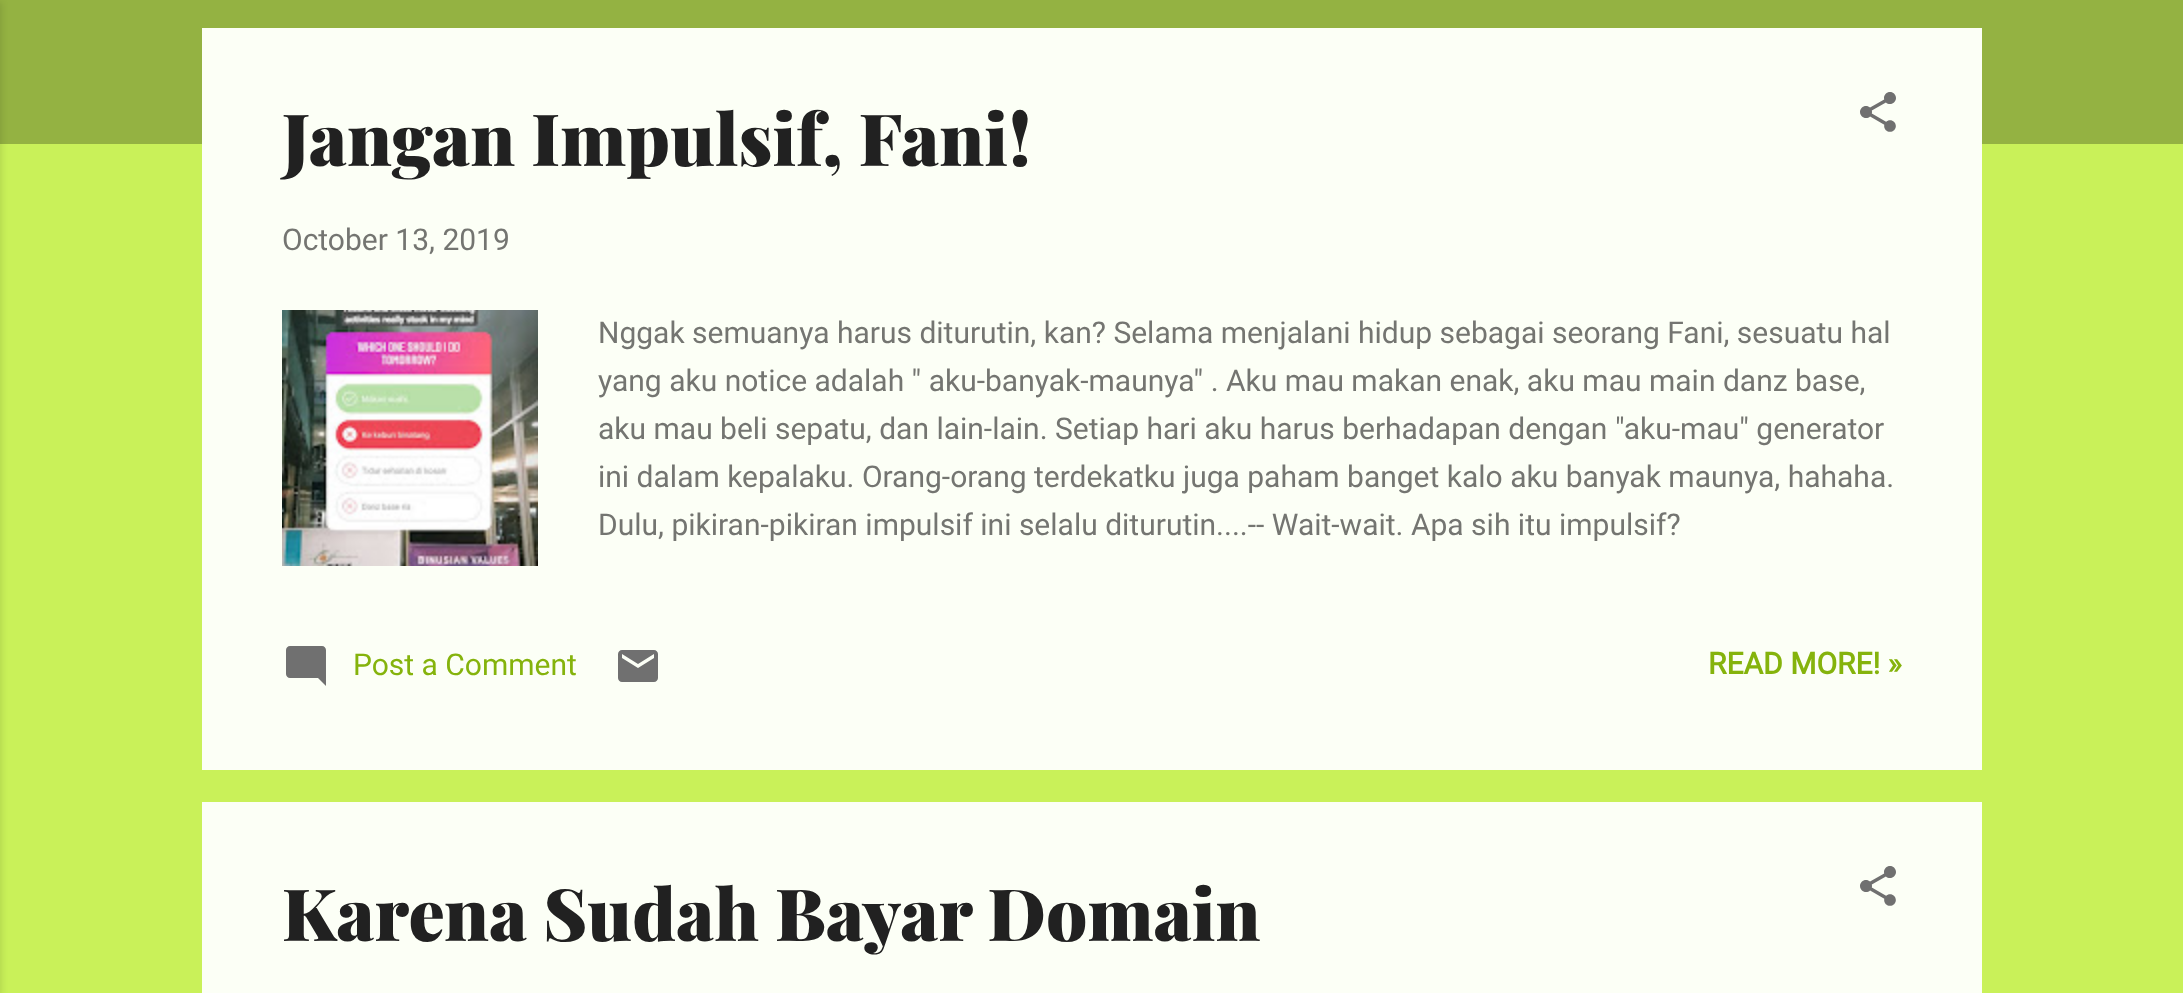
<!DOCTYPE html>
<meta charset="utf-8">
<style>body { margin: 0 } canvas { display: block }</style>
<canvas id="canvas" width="2183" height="993"></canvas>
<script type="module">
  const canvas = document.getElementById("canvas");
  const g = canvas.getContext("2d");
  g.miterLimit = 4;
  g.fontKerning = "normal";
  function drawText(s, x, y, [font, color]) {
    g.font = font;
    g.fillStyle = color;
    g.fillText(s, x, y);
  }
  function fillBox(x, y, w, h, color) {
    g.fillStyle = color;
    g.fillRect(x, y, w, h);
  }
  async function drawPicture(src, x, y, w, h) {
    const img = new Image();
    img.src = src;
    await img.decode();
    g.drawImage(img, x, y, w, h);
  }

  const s1 = ["900 72px Playfair Display", "#212121"];
  const s2 = ["30px Roboto", "#747571"];
  const s3 = ["30px Roboto", "#85B30C"];
  const s4 = ["bold 30px Roboto", "#85B30C"];

  fillBox(0, 0, 2183, 993, "#C9F159");
  fillBox(0, 0, 2183, 144, "#94B242");
  g.fillStyle = "rgba(0, 0, 0, 0.1)";
  g.filter = "blur(3px)";
  g.beginPath();
  g.rect(-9, 2, 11, 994);
  g.fill();
  g.filter = "none";
  fillBox(202, 28, 1780, 742, "#FCFFF6");
  drawText("Jangan Impulsif, Fani!", 282, 166, s1);
  await drawPicture("pic1.png", 1860, 92, 36, 40);
  drawText("October 13, 2019", 282, 250, s2);
  await drawPicture("pic2.png", 282, 310, 256, 256);
  drawText("Nggak semuanya harus diturutin, kan? Selama menjalani hidup sebagai seorang Fani, sesuatu hal", 598, 343, s2);
  drawText("yang aku notice adalah \" aku-banyak-maunya\" . Aku mau makan enak, aku mau main danz base,", 598, 391, s2);
  drawText("aku mau beli sepatu, dan lain-lain. Setiap hari aku harus berhadapan dengan \"aku-mau\" generator", 598, 439, s2);
  drawText("ini dalam kepalaku. Orang-orang terdekatku juga paham banget kalo aku banyak maunya, hahaha.", 598, 487, s2);
  drawText("Dulu, pikiran-pikiran impulsif ini selalu diturutin....-- Wait-wait. Apa sih itu impulsif?", 598, 535, s2);
  await drawPicture("pic3.png", 286, 646, 40, 40);
  drawText("Post a Comment", 353, 675, s3);
  await drawPicture("pic4.png", 618, 650, 40, 32);
  drawText("READ MORE! »", 1708, 674, s4);
  fillBox(202, 802, 1780, 191, "#FCFFF6");
  drawText("Karena Sudah Bayar Domain", 282, 941, s1);
  await drawPicture("pic1.png", 1860, 866, 36, 40);
</script>
